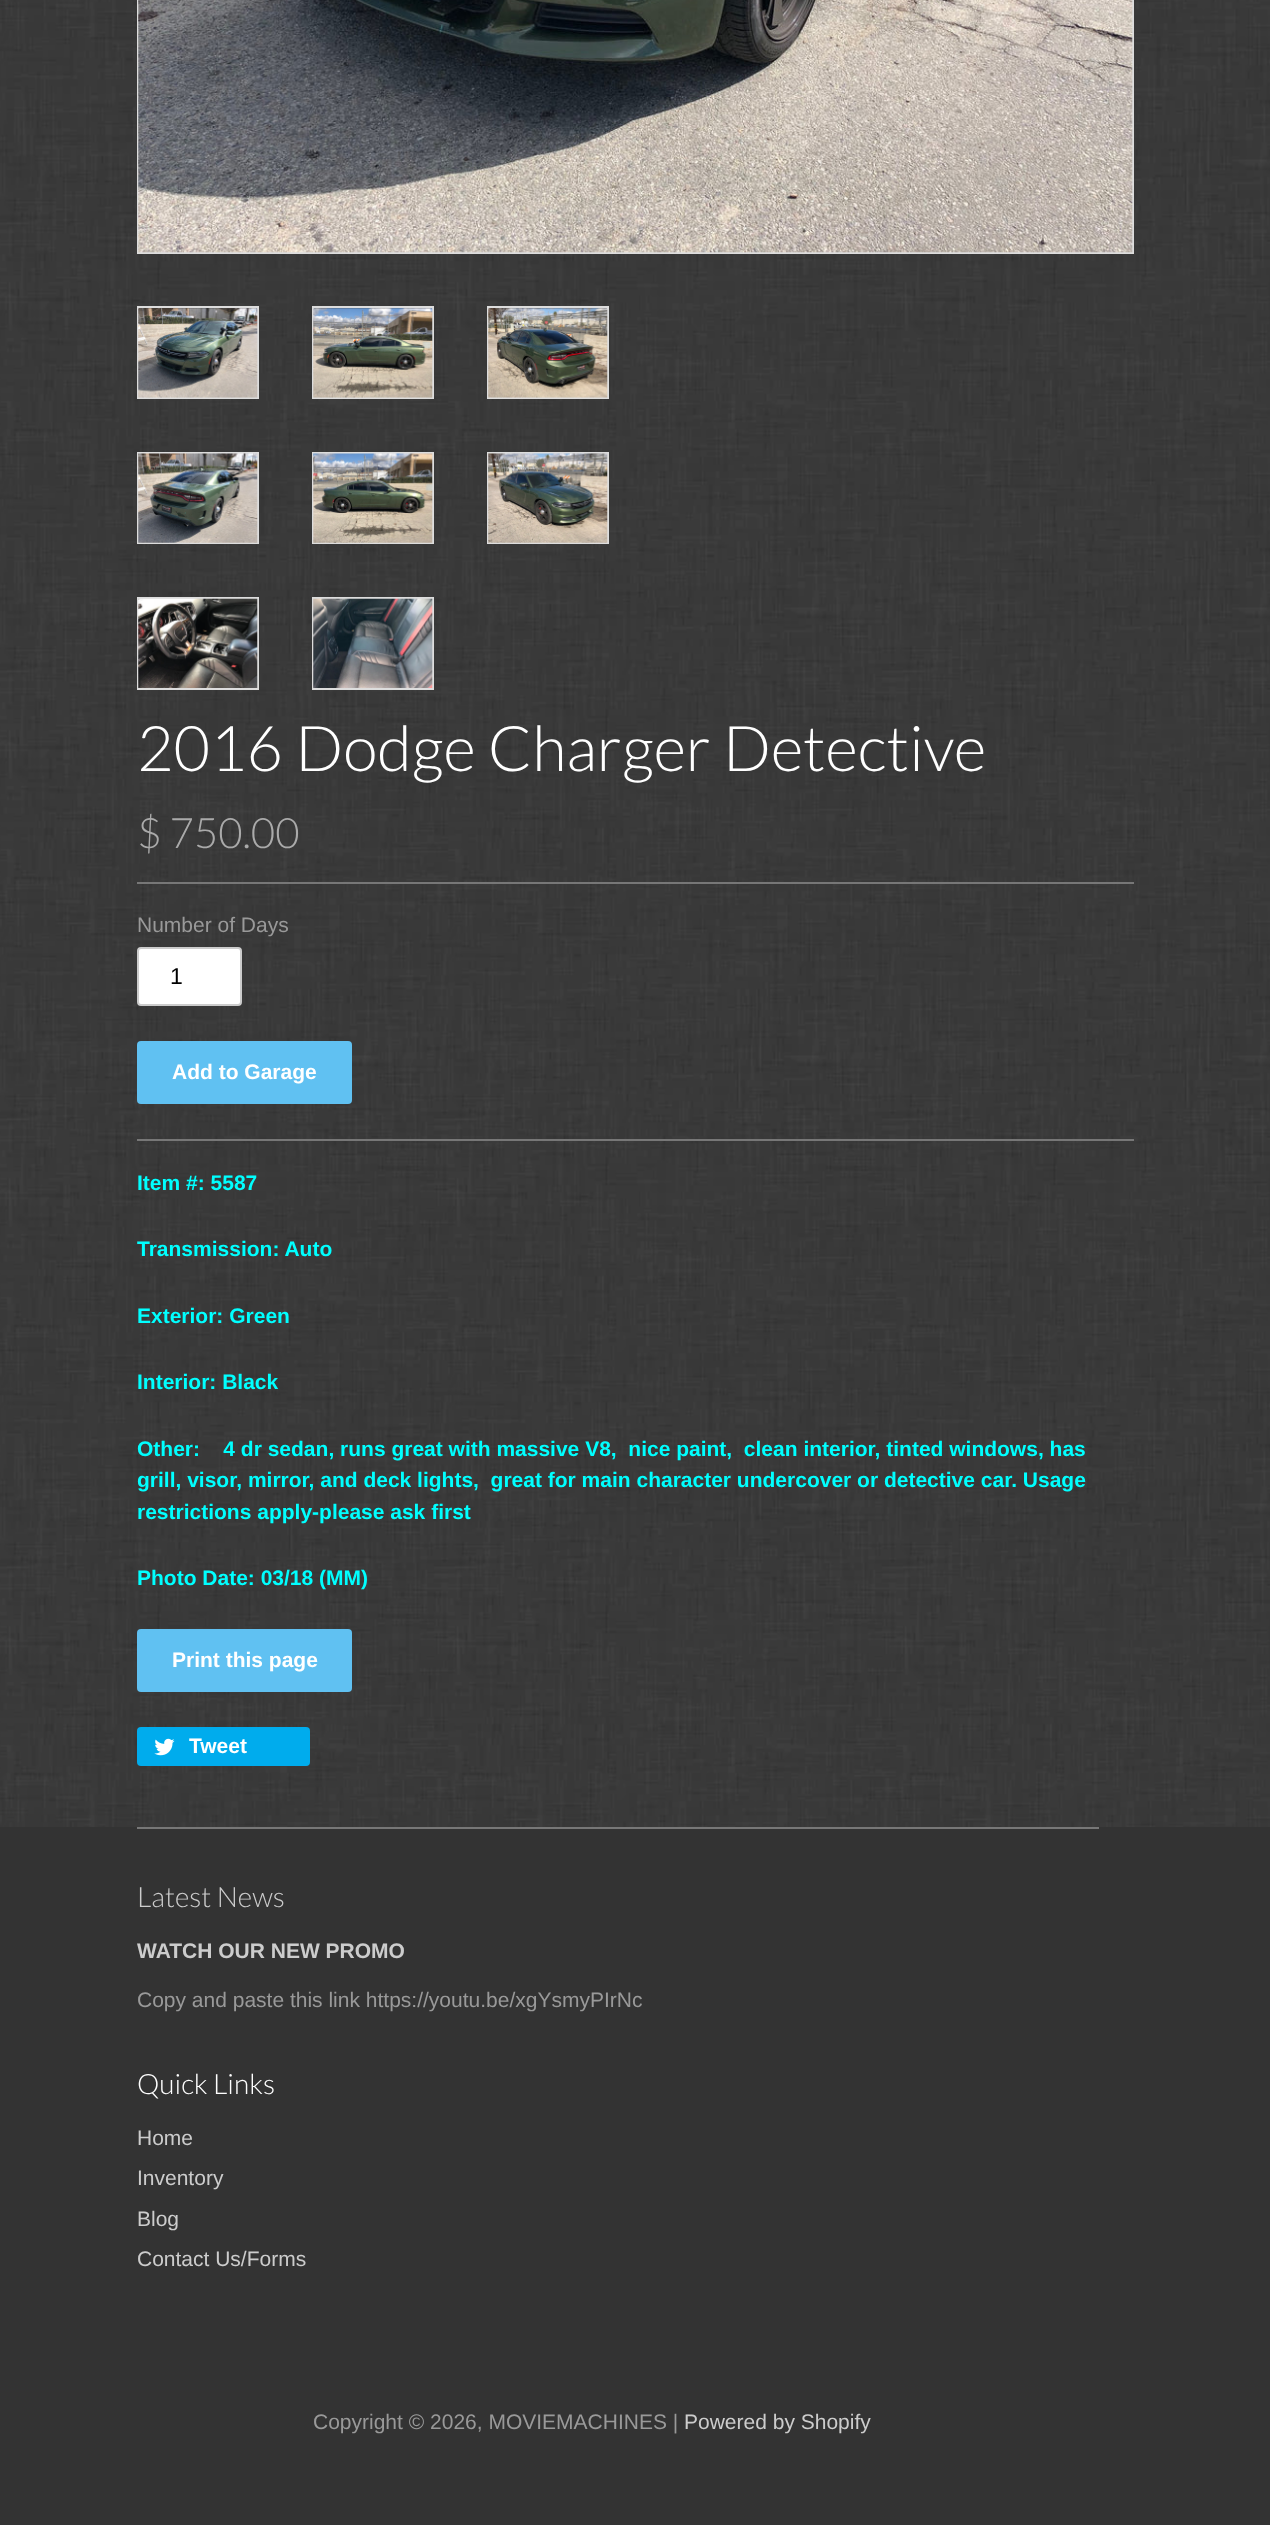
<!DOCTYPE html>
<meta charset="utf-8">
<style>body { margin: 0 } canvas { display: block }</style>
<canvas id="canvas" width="1270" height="2525"></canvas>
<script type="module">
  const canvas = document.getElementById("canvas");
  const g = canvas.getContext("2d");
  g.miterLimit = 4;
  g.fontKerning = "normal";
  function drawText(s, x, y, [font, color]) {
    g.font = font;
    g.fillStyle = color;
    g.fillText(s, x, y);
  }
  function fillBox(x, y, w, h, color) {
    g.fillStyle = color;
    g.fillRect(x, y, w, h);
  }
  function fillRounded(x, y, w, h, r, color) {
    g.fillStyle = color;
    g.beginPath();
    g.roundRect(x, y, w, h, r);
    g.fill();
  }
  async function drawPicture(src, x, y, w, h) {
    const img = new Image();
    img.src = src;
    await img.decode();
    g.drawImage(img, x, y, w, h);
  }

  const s1 = ["300 63px Lato", "#FFFFFF"];
  const s2 = ["300 42px Lato", "#AAAAAA"];
  const s3 = ["21px Liberation Sans", "#999999"];
  const s4 = ["23px Liberation Sans", "#000000"];
  const s5 = ["bold 21px Liberation Sans", "#FFFFFF"];
  const s6 = ["bold 21px Liberation Sans", "#00FFFF"];
  const s7 = ["300 28px Lato", "#CCCCCC"];
  const s8 = ["bold 21px Liberation Sans", "#CCCCCC"];
  const s9 = ["300 28px Lato", "#FFFFFF"];
  const s10 = ["21px Liberation Sans", "#CCCCCC"];

  fillBox(0, 0, 1270, 2525, "#FFFFFF");
  await drawPicture("pic1.png", 0, 0, 1270, 1827);
  g.strokeStyle = "#DDDDDD";
  g.lineWidth = 2;
  g.strokeRect(138, -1, 995, 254);
  await drawPicture("pic2.png", 138, 0, 995, 253);
  g.strokeRect(138, 307, 120, 91);
  await drawPicture("pic3.png", 138, 308, 120, 90);
  g.strokeRect(313, 307, 120, 91);
  await drawPicture("pic4.png", 313, 308, 120, 90);
  g.strokeRect(488, 307, 120, 91);
  await drawPicture("pic5.png", 488, 308, 120, 90);
  g.strokeRect(138, 453, 120, 90);
  await drawPicture("pic6.png", 138, 453, 120, 90);
  g.strokeRect(313, 453, 120, 90);
  await drawPicture("pic7.png", 313, 453, 120, 90);
  g.strokeRect(488, 453, 120, 90);
  await drawPicture("pic8.png", 488, 453, 120, 90);
  g.strokeRect(138, 598, 120, 91);
  await drawPicture("pic9.png", 138, 598, 120, 90);
  g.strokeRect(313, 598, 120, 91);
  await drawPicture("pic10.png", 313, 598, 120, 90);
  drawText("2016 Dodge Charger Detective", 137, 771, s1);
  drawText("$ 750.00", 137, 848, s2);
  fillBox(137, 882, 997, 2, "#777777");
  fillBox(137, 1139, 997, 2, "#777777");
  drawText("Number of Days", 137, 932, s3);
  g.fillStyle = "#FFFFFF";
  g.beginPath();
  g.roundRect(138, 948, 103, 57, 3);
  g.fill();
  g.strokeStyle = "#CCCCCC";
  g.stroke();
  drawText("1", 170, 984, s4);
  fillRounded(137, 1041, 215, 63, 4, "#60C1F2");
  drawText("Add to Garage", 172, 1079, s5);
  drawText("Item #: 5587", 137, 1190, s6);
  drawText("Transmission: Auto", 137, 1256, s6);
  drawText("Exterior: Green", 137, 1323, s6);
  drawText("Interior: Black", 137, 1389, s6);
  drawText("Other:    4 dr sedan, runs great with massive V8,  nice paint,  clean interior, tinted windows, has", 137, 1456, s6);
  drawText("grill, visor, mirror, and deck lights,  great for main character undercover or detective car. Usage", 137, 1487, s6);
  drawText("restrictions apply-please ask first", 137, 1519, s6);
  drawText("Photo Date: 03/18 (MM)", 137, 1585, s6);
  fillRounded(137, 1629, 215, 63, 4, "#60C1F2");
  drawText("Print this page", 172, 1667, s5);
  fillRounded(137, 1727, 173, 39, 4, "#00ACED");
  await drawPicture("pic11.png", 154, 1738, 21, 18);
  drawText("Tweet", 189, 1753, s5);
  fillBox(0, 1827, 1270, 698, "#333333");
  fillBox(137, 1827, 962, 2, "#777777");
  drawText("Latest News", 137, 1907, s7);
  drawText("WATCH OUR NEW PROMO", 137, 1958, s8);
  drawText("Copy and paste this link https://youtu.be/xgYsmyPIrNc", 137, 2007, s3);
  drawText("Quick Links", 137, 2094, s9);
  drawText("Home", 137, 2145, s10);
  drawText("Inventory", 137, 2185, s10);
  drawText("Blog", 137, 2226, s10);
  drawText("Contact Us/Forms", 137, 2266, s10);
  drawText("Copyright © 2026, MOVIEMACHINES |", 313, 2429, s3);
  drawText("Powered by Shopify", 684, 2429, s10);
</script>
